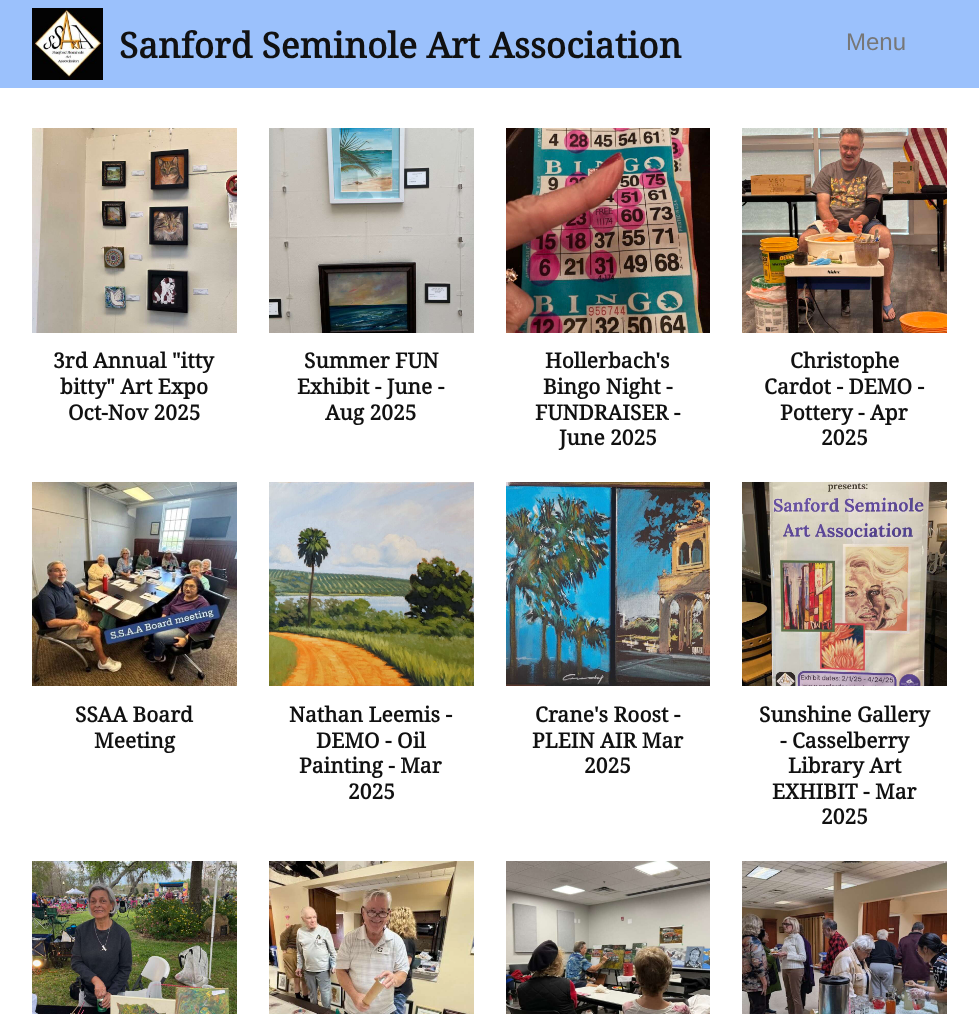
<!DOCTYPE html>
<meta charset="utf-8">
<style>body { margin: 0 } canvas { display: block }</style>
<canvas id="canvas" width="979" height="1014"></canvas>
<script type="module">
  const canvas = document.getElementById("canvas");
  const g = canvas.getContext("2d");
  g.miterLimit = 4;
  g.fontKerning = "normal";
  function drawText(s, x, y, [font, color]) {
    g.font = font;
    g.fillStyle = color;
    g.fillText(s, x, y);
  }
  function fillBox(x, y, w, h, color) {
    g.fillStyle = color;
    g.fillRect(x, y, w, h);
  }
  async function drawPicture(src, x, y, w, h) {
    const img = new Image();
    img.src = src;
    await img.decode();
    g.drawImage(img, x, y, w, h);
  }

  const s1 = ["bold 35.25px Noto Serif", "#111111"];
  const s2 = ["24px Liberation Sans", "#777777"];
  const s3 = ["bold 21px Noto Serif", "#111111"];

  fillBox(0, 0, 979, 1014, "#FFFFFF");
  fillBox(0, 0, 979, 88, "#9BC1FC");
  await drawPicture("pic1.png", 32, 8, 71, 72);
  drawText("Sanford Seminole Art Association", 119, 58, s1);
  drawText("Menu", 846, 50, s2);
  await drawPicture("pic2.png", 32, 128, 205, 205);
  drawText("3rd Annual \"itty", 53, 368, s3);
  drawText("bitty\" Art Expo", 60, 394, s3);
  drawText("Oct-Nov 2025", 68, 420, s3);
  await drawPicture("pic3.png", 269, 128, 205, 205);
  drawText("Summer FUN", 304, 368, s3);
  drawText("Exhibit - June -", 297, 394, s3);
  drawText("Aug 2025", 325, 420, s3);
  await drawPicture("pic4.png", 506, 128, 204, 205);
  drawText("Hollerbach's", 545, 368, s3);
  drawText("Bingo Night -", 543, 394, s3);
  drawText("FUNDRAISER -", 535, 420, s3);
  drawText("June 2025", 559, 445, s3);
  await drawPicture("pic5.png", 742, 128, 205, 205);
  drawText("Christophe", 790, 368, s3);
  drawText("Cardot - DEMO -", 764, 394, s3);
  drawText("Pottery - Apr", 780, 420, s3);
  drawText("2025", 821, 445, s3);
  await drawPicture("pic6.png", 32, 482, 205, 204);
  drawText("SSAA Board", 75, 722, s3);
  drawText("Meeting", 94, 748, s3);
  await drawPicture("pic7.png", 269, 482, 205, 204);
  drawText("Nathan Leemis -", 289, 722, s3);
  drawText("DEMO - Oil", 316, 748, s3);
  drawText("Painting - Mar", 299, 773, s3);
  drawText("2025", 348, 799, s3);
  await drawPicture("pic8.png", 506, 482, 204, 204);
  drawText("Crane's Roost -", 535, 722, s3);
  drawText("PLEIN AIR Mar", 532, 748, s3);
  drawText("2025", 584, 773, s3);
  await drawPicture("pic9.png", 742, 482, 205, 204);
  drawText("Sunshine Gallery", 759, 722, s3);
  drawText("- Casselberry", 780, 748, s3);
  drawText("Library Art", 788, 773, s3);
  drawText("EXHIBIT - Mar", 772, 799, s3);
  drawText("2025", 821, 824, s3);
  await drawPicture("pic10.png", 32, 861, 205, 153);
  await drawPicture("pic11.png", 269, 861, 205, 153);
  await drawPicture("pic12.png", 506, 861, 204, 153);
  await drawPicture("pic13.png", 742, 861, 205, 153);
</script>
